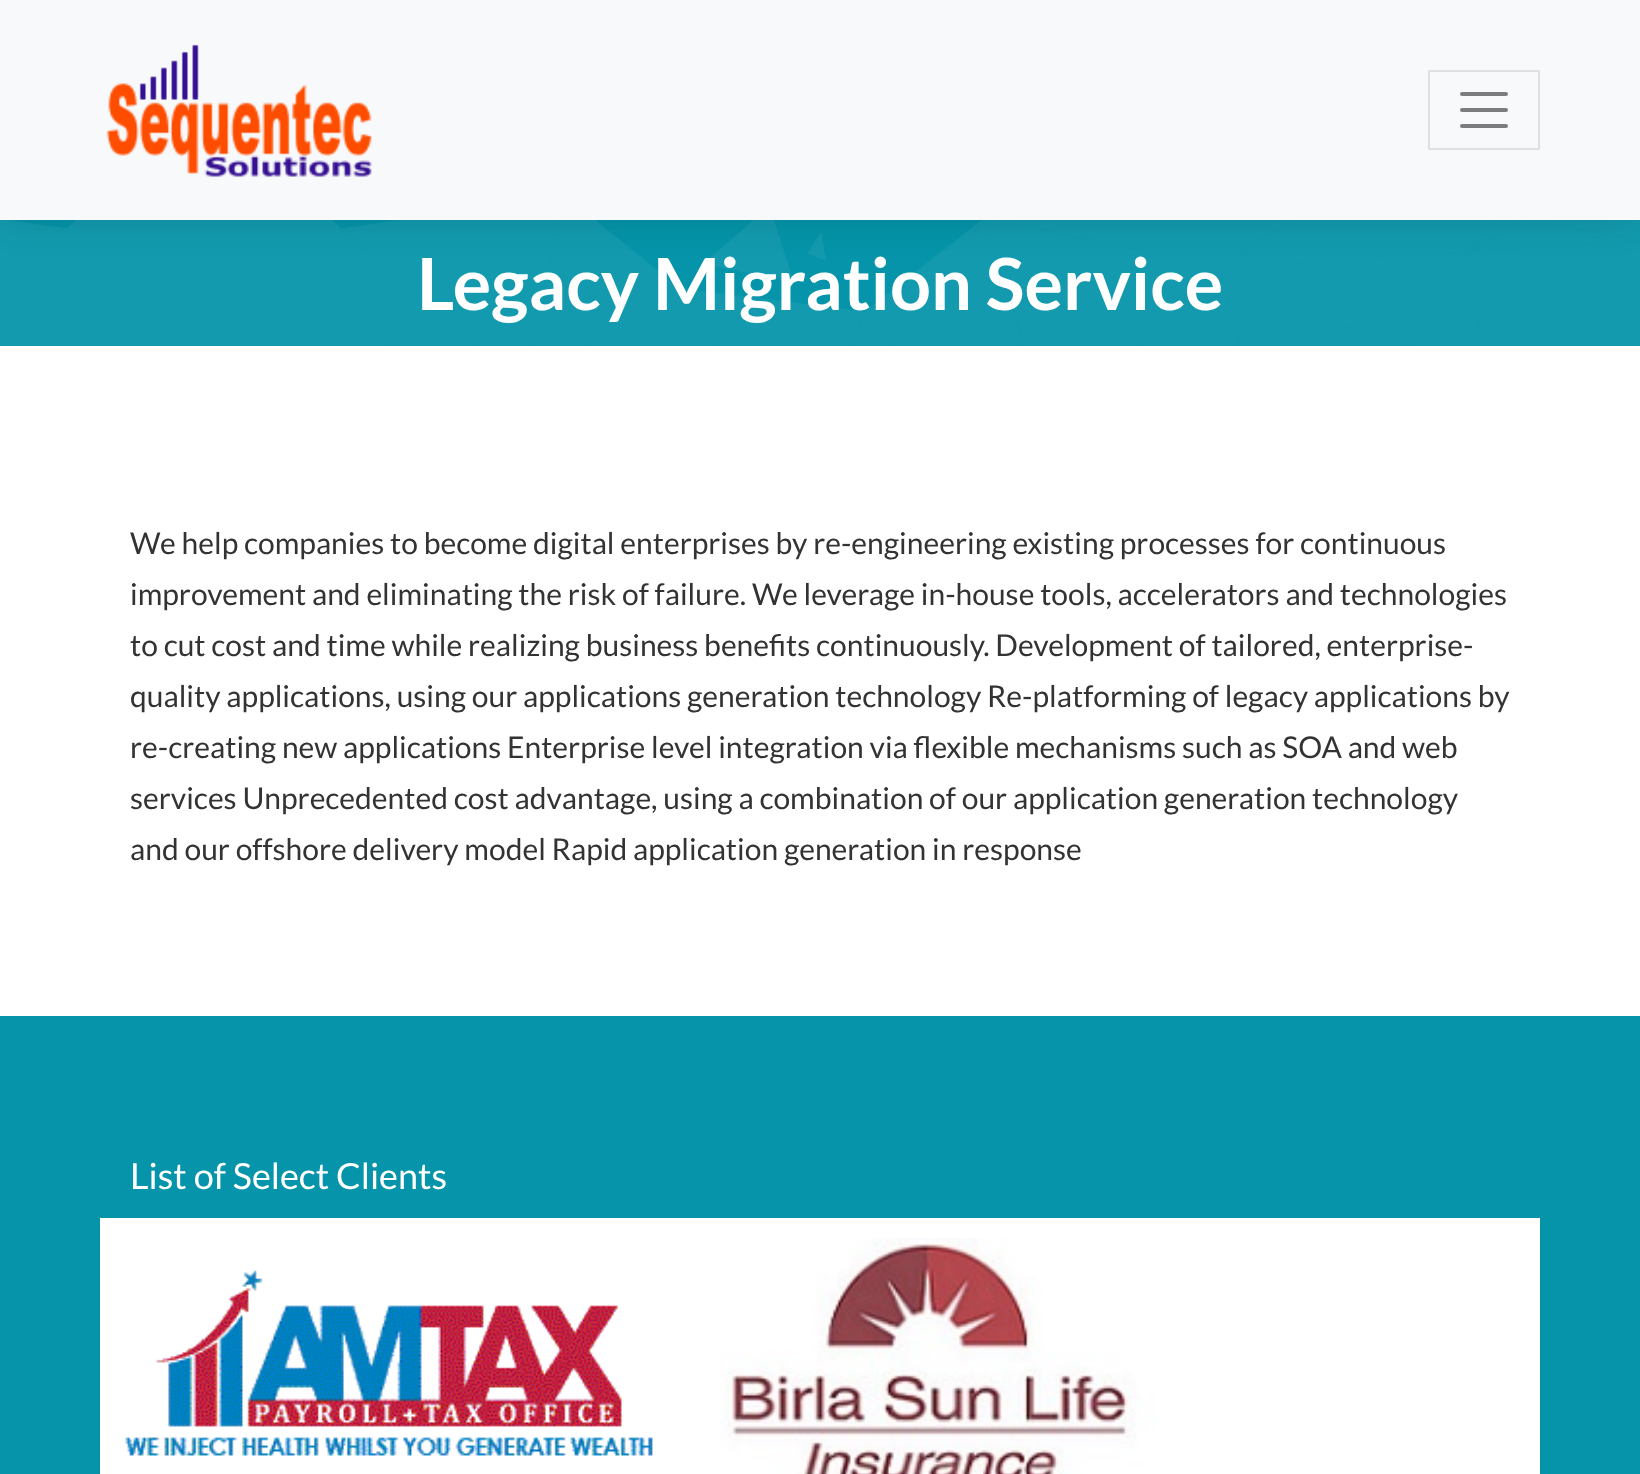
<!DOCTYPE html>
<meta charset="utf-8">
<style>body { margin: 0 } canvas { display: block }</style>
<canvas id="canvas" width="1640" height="1474"></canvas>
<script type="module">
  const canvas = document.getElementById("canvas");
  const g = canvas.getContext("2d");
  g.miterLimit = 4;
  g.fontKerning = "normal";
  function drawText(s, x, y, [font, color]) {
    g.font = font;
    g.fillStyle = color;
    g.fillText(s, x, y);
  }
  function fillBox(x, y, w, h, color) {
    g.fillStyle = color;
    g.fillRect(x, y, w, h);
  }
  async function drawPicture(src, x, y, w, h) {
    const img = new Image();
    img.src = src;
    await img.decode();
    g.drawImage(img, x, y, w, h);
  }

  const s1 = ["bold 72px Lato", "#FFFFFF"];
  const s2 = ["30px Lato", "#333333"];
  const s3 = ["36px Lato", "#FFFFFF"];

  fillBox(0, 0, 1640, 1474, "#FFFFFF");
  fillBox(0, 220, 1640, 126, "#0594A9");
  await drawPicture("pic2.png", 0, 220, 1640, 126);
  g.fillStyle = "rgba(0, 0, 0, 0.12)";
  g.filter = "blur(18px)";
  g.beginPath();
  g.rect(0, 0, 1640, 220);
  g.fill();
  g.filter = "none";
  fillBox(0, 0, 1640, 220, "#F8F9FA");
  await drawPicture("pic1.png", 106, 44, 266, 133);
  g.strokeStyle = "#DFE0E1";
  g.lineWidth = 2;
  g.strokeRect(1429, 71, 110, 78);
  g.beginPath();
  g.moveTo(1462, 94);
  g.lineTo(1506, 94);
  g.moveTo(1462, 110);
  g.lineTo(1506, 110);
  g.moveTo(1462, 126);
  g.lineTo(1506, 126);
  g.strokeStyle = "#7C7D7D";
  g.lineWidth = 4;
  g.lineCap = "round";
  g.stroke();
  drawText("Legacy Migration Service", 417, 310, s1);
  drawText("We help companies to become digital enterprises by re-engineering existing processes for continuous", 130, 554, s2);
  drawText("improvement and eliminating the risk of failure. We leverage in-house tools, accelerators and technologies", 130, 605, s2);
  drawText("to cut cost and time while realizing business benefits continuously. Development of tailored, enterprise-", 130, 656, s2);
  drawText("quality applications, using our applications generation technology Re-platforming of legacy applications by", 130, 707, s2);
  drawText("re-creating new applications Enterprise level integration via flexible mechanisms such as SOA and web", 130, 758, s2);
  drawText("services Unprecedented cost advantage, using a combination of our application generation technology", 130, 809, s2);
  drawText("and our offshore delivery model Rapid application generation in response", 130, 860, s2);
  fillBox(0, 1016, 1640, 458, "#0594A9");
  drawText("List of Select Clients", 130, 1189, s3);
  fillBox(100, 1218, 1440, 256, "#FFFFFF");
  await drawPicture("pic3.png", 125, 1270, 528, 186);
  await drawPicture("pic4.png", 719, 1238, 437, 236);
</script>
